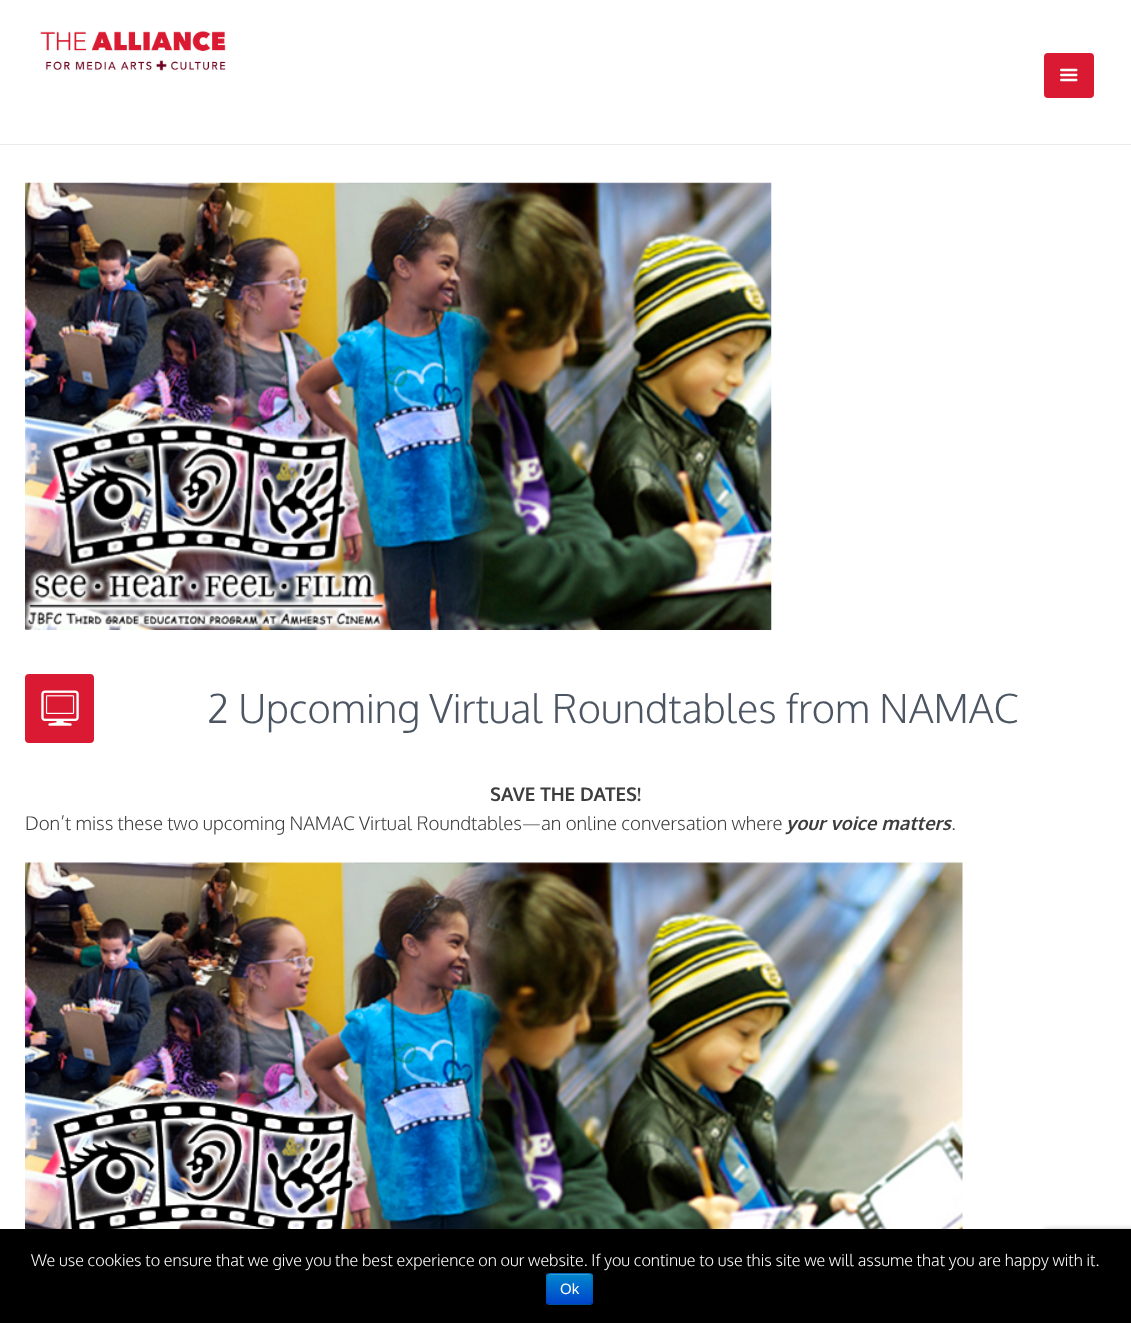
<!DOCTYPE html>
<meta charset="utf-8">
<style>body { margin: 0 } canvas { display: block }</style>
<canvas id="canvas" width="1131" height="1323"></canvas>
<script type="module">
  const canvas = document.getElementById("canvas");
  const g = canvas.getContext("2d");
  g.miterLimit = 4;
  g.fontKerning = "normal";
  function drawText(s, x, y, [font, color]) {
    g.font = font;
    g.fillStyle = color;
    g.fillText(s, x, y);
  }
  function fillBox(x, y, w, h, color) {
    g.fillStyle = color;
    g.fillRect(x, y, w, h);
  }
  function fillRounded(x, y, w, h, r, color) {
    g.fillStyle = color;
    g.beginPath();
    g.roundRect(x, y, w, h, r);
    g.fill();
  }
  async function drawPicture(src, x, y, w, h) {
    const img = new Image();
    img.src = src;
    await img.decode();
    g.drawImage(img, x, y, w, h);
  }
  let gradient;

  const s1 = ["300 40px Oxygen", "#4C5562"];
  const s2 = ["bold 18.75px Oxygen", "#3D3D3D"];
  const s3 = ["300 18.75px Oxygen", "#3D3D3D"];
  const s4 = ["200 18.75px DejaVu Sans", "#3D3D3D"];
  const s5 = ["italic bold 18.75px Oxygen", "#3D3D3D"];
  const s6 = ["300 16.25px Oxygen", "#FFFFFF"];
  const s7 = ["15px Liberation Sans", "#FFFFFF"];

  fillBox(0, 0, 1131, 1323, "#FFFFFF");
  fillBox(0, 144, 1131, 1, "#EBEBEB");
  await drawPicture("pic1.png", 40, 31, 186, 40);
  fillRounded(1044, 53, 50, 45, 4, "#DA1A32");
  await drawPicture("pic2.png", 1060, 68, 18, 14);
  await drawPicture("pic3.png", 25, 182, 747, 448);
  fillRounded(25, 674, 69, 69, 4, "#DA1A32");
  await drawPicture("pic4.png", 41, 690, 38, 36);
  drawText("2 Upcoming Virtual Roundtables from NAMAC", 207, 723, s1);
  drawText("SAVE THE DATES!", 490, 801, s2);
  drawText("Don’t miss these two upcoming NAMAC Virtual Roundtables", 25, 830, s3);
  drawText("—", 522, 830, s4);
  drawText("an online conversation where", 541, 830, s3);
  drawText("your voice matters", 786, 830, s5);
  drawText(".", 951, 830, s3);
  await drawPicture("pic5.png", 25, 862, 938, 367);
  g.fillStyle = "#808080";
  g.filter = "blur(3px)";
  g.beginPath();
  g.roundRect(1044, 1231, 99, 75, 2.5);
  g.fill();
  g.filter = "none";
  fillBox(0, 1229, 1131, 94, "#000000");
  drawText("We use cookies to ensure that we give you the best experience on our website. If you continue to use this site we will assume that you are happy with it.", 31, 1266, s6);
  fillRounded(546, 1273, 47, 32, 4, "#006DCC");
  g.save();
  g.beginPath();
  g.roundRect(546, 1273, 47, 32, 4);
  g.clip();
  gradient = g.createLinearGradient(569, 1274, 569, 1304);
  gradient.addColorStop(0, "#0088CC");
  gradient.addColorStop(1, "#0044CC");
  g.fillStyle = gradient;
  g.fillRect(546, 1274, 47, 30);
  g.restore();
  g.fillStyle = "#339FD6";
  g.beginPath();
  g.moveTo(550, 1275);
  g.lineTo(589, 1275);
  g.bezierCurveTo(590, 1275, 591, 1276, 591, 1278);
  g.bezierCurveTo(591, 1273, 587, 1274, 582, 1274);
  g.lineTo(557, 1274);
  g.bezierCurveTo(552, 1274, 548, 1273, 548, 1278);
  g.bezierCurveTo(548, 1276, 549, 1275, 550, 1275);
  g.closePath();
  g.fill();
  g.beginPath();
  g.moveTo(591, 1303.5);
  g.lineTo(589, 1304.5);
  g.lineTo(550, 1304.5);
  g.lineTo(548, 1303.5);
  g.strokeStyle = "rgba(0, 0, 0, 0.25)";
  g.lineWidth = 1.2;
  g.stroke();
  g.beginPath();
  g.moveTo(548, 1303.5);
  g.bezierCurveTo(545.5, 1301.5, 547, 1291.5, 547, 1289);
  g.bezierCurveTo(547, 1274, 543.5, 1273, 556.5, 1273);
  g.lineTo(582.5, 1273);
  g.bezierCurveTo(595.5, 1273, 592, 1274, 592, 1289);
  g.bezierCurveTo(592, 1291.5, 593, 1301.5, 591, 1303.5);
  g.strokeStyle = "rgba(0, 0, 0, 0.1)";
  g.stroke();
  drawText("Ok", 560, 1294, s7);
</script>
